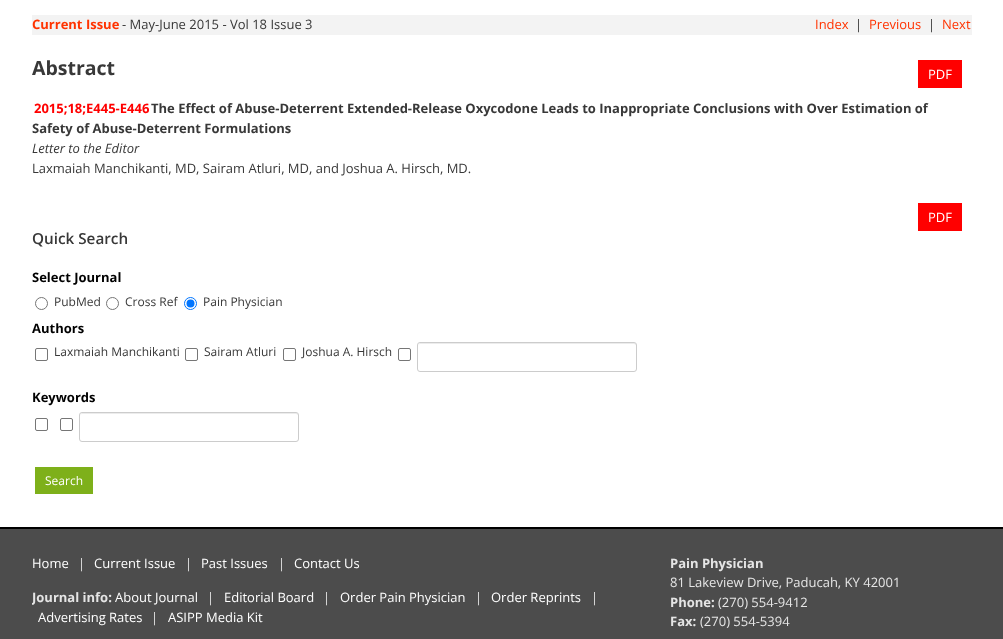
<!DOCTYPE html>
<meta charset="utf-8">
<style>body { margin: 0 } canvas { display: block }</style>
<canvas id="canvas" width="1003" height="639"></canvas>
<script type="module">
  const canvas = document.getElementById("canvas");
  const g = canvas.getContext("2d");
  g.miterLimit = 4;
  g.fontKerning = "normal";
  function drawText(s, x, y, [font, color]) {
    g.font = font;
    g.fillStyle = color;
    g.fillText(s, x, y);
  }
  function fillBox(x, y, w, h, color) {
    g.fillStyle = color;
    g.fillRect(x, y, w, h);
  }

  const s1 = ["bold 13px Open Sans", "#FF3300"];
  const s2 = ["13px Open Sans", "#383838"];
  const s3 = ["13px Open Sans", "#FF3300"];
  const s4 = ["bold 19.5px Open Sans", "#383838"];
  const s5 = ["13px Open Sans", "#FFFFFF"];
  const s6 = ["bold 13px Open Sans", "#FF0000"];
  const s7 = ["bold 13px Open Sans", "#383838"];
  const s8 = ["italic 13px Open Sans", "#383838"];
  const s9 = ["600 15.25px Open Sans", "#383838"];
  const s10 = ["bold 13px Open Sans", "#000000"];
  const s11 = ["12px Open Sans", "#383838"];
  const s12 = ["12px Open Sans", "#FFFFFF"];
  const s13 = ["13px Open Sans", "#E5E5E5"];
  const s14 = ["bold 13px Open Sans", "#E5E5E5"];

  fillBox(0, 0, 1003, 639, "#FFFFFF");
  fillBox(32, 15, 940, 20, "#F3F3F3");
  drawText("Current Issue", 32, 29, s1);
  drawText("- May-June 2015 - Vol 18 Issue 3", 122, 29, s2);
  drawText("Index", 815, 29, s3);
  drawText("|", 855, 29, s2);
  drawText("Previous", 869, 29, s3);
  drawText("|", 928, 29, s2);
  drawText("Next", 942, 29, s3);
  drawText("Abstract", 32, 75, s4);
  fillBox(918, 60, 44, 28, "#FF0000");
  drawText("PDF", 928, 79, s5);
  drawText("2015;18;E445-E446", 34, 113, s6);
  drawText("The Effect of Abuse-Deterrent Extended-Release Oxycodone Leads to Inappropriate Conclusions with Over Estimation of", 151, 113, s7);
  drawText("Safety of Abuse-Deterrent Formulations", 32, 133, s7);
  drawText("Letter to the Editor", 32, 153, s8);
  drawText("Laxmaiah Manchikanti, MD, Sairam Atluri, MD, and Joshua A. Hirsch, MD.", 32, 173, s2);
  fillBox(918, 203, 44, 28, "#FF0000");
  drawText("PDF", 928, 222, s5);
  drawText("Quick Search", 32, 244, s9);
  drawText("Select Journal", 32, 282, s10);
  g.beginPath();
  g.arc(41.5, 303.5, 6, 0, Math.PI * 2);
  g.strokeStyle = "#767676";
  g.stroke();
  drawText("PubMed", 54, 306, s11);
  g.beginPath();
  g.arc(112.5, 303.5, 6, 0, Math.PI * 2);
  g.stroke();
  drawText("Cross Ref", 125, 306, s11);
  g.beginPath();
  g.arc(190.5, 303.5, 6, 0, Math.PI * 2);
  g.strokeStyle = "#0075FF";
  g.stroke();
  g.fillStyle = "#0075FF";
  g.beginPath();
  g.arc(190.5, 303.5, 4, 0, Math.PI * 2);
  g.fill();
  drawText("Pain Physician", 203, 306, s11);
  drawText("Authors", 32, 333, s10);
  g.beginPath();
  g.roundRect(35.5, 348.5, 12, 12, 1.5);
  g.strokeStyle = "#767676";
  g.stroke();
  drawText("Laxmaiah Manchikanti", 54, 356, s11);
  g.beginPath();
  g.roundRect(185.5, 348.5, 12, 12, 1.5);
  g.stroke();
  drawText("Sairam Atluri", 204, 356, s11);
  g.beginPath();
  g.roundRect(283.5, 348.5, 12, 12, 1.5);
  g.stroke();
  drawText("Joshua A. Hirsch", 302, 356, s11);
  g.beginPath();
  g.roundRect(398.5, 348.5, 12, 12, 1.5);
  g.stroke();
  g.fillStyle = "#ECECEC";
  g.beginPath();
  g.moveTo(420, 344);
  g.lineTo(634, 344);
  g.bezierCurveTo(635, 344, 636, 345, 636, 346);
  g.bezierCurveTo(636, 345, 636, 343, 634, 343);
  g.lineTo(420, 343);
  g.lineTo(419, 344);
  g.lineTo(418, 346);
  g.bezierCurveTo(418, 345, 419, 344, 420, 344);
  g.closePath();
  g.fill();
  g.beginPath();
  g.roundRect(417.5, 342.5, 219, 29, 2.5);
  g.strokeStyle = "#CCCCCC";
  g.stroke();
  drawText("Keywords", 32, 402, s10);
  g.beginPath();
  g.roundRect(35.5, 418.5, 12, 12, 1.5);
  g.strokeStyle = "#767676";
  g.stroke();
  g.beginPath();
  g.roundRect(60.5, 418.5, 12, 12, 1.5);
  g.stroke();
  g.fillStyle = "#ECECEC";
  g.beginPath();
  g.moveTo(82, 414);
  g.lineTo(296, 414);
  g.bezierCurveTo(297, 414, 298, 415, 298, 416);
  g.bezierCurveTo(298, 415, 298, 413, 296, 413);
  g.lineTo(82, 413);
  g.lineTo(81, 414);
  g.lineTo(80, 416);
  g.bezierCurveTo(80, 415, 81, 414, 82, 414);
  g.closePath();
  g.fill();
  g.beginPath();
  g.roundRect(79.5, 412.5, 219, 29, 2.5);
  g.strokeStyle = "#CCCCCC";
  g.stroke();
  fillBox(35, 467, 58, 27, "#7EB01A");
  drawText("Search", 45, 485, s12);
  fillBox(0, 529, 1003, 110, "#4C4C4C");
  fillBox(0, 527, 1003, 2, "#000000");
  drawText("Home", 32, 568, s5);
  drawText("|", 78, 568, s13);
  drawText("Current Issue", 94, 568, s5);
  drawText("|", 185, 568, s13);
  drawText("Past Issues", 201, 568, s5);
  drawText("|", 278, 568, s13);
  drawText("Contact Us", 294, 568, s5);
  g.save();
  g.beginPath();
  g.rect(32, 529, 940, 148);
  g.clip();
  drawText("Journal info:", 32, 602, s14);
  g.restore();
  drawText("About Journal", 115, 602, s5);
  drawText("|", 207, 602, s13);
  drawText("Editorial Board", 224, 602, s5);
  drawText("|", 323, 602, s13);
  drawText("Order Pain Physician", 340, 602, s5);
  drawText("|", 475, 602, s13);
  drawText("Order Reprints", 491, 602, s5);
  drawText("|", 591, 602, s13);
  drawText("Advertising Rates", 38, 622, s5);
  drawText("|", 151, 622, s13);
  drawText("ASIPP Media Kit", 168, 622, s5);
  drawText("Pain Physician", 670, 568, s14);
  drawText("81 Lakeview Drive, Paducah, KY 42001", 670, 587, s13);
  drawText("Phone:", 670, 607, s14);
  drawText("(270) 554-9412", 718, 607, s13);
  drawText("Fax:", 670, 626, s14);
  drawText("(270) 554-5394", 700, 626, s13);
</script>
